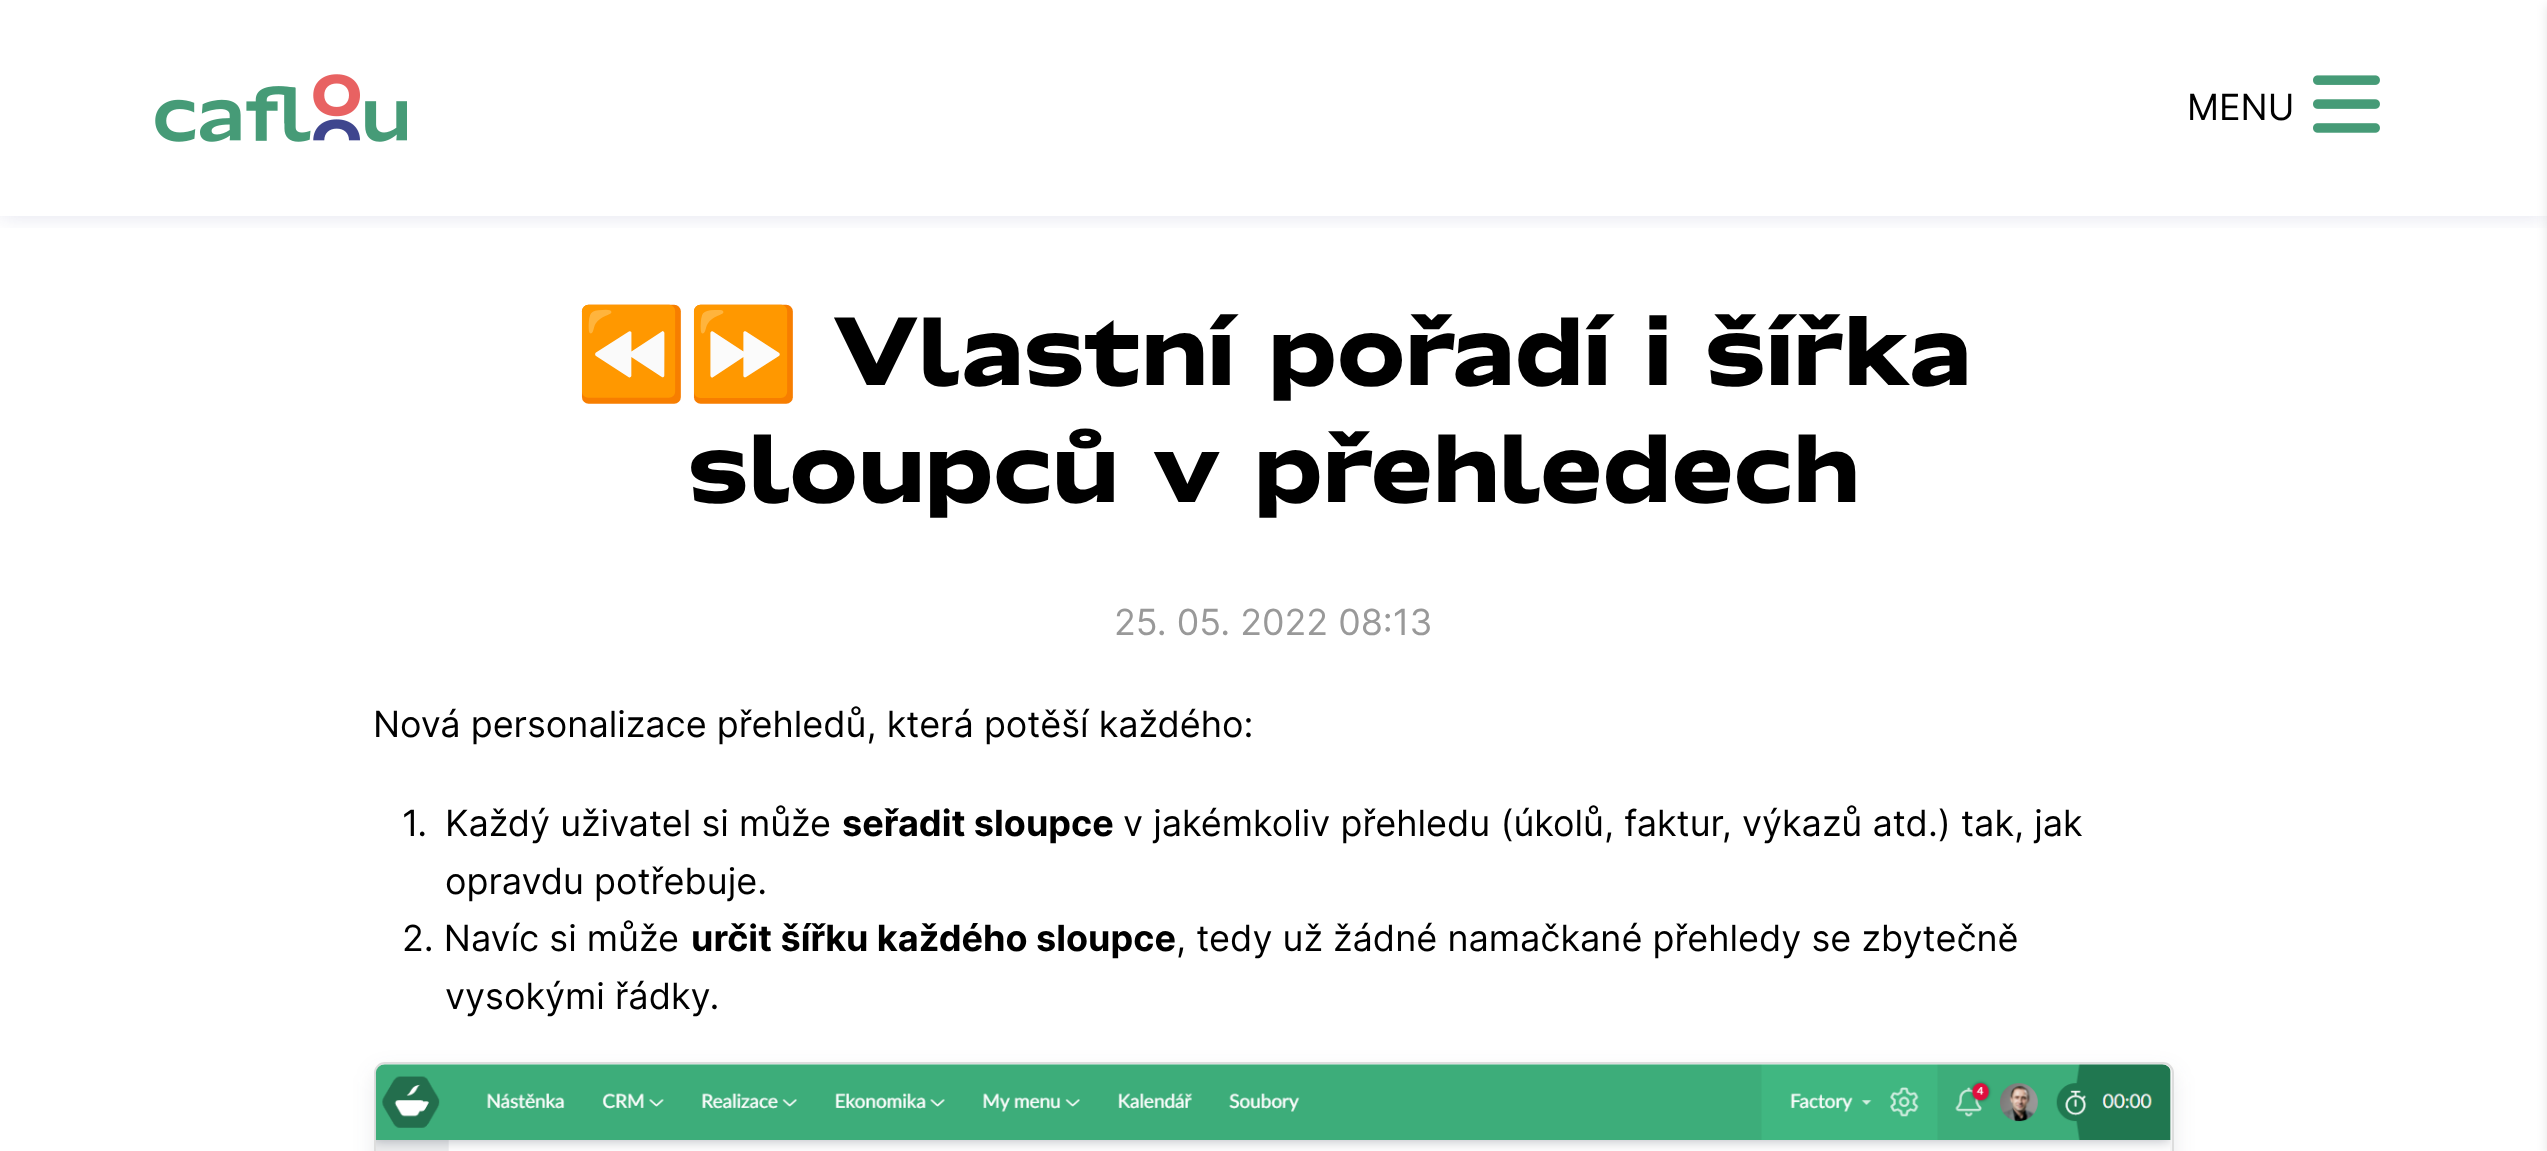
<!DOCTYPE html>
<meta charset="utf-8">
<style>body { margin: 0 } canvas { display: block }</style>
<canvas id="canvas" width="2547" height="1151"></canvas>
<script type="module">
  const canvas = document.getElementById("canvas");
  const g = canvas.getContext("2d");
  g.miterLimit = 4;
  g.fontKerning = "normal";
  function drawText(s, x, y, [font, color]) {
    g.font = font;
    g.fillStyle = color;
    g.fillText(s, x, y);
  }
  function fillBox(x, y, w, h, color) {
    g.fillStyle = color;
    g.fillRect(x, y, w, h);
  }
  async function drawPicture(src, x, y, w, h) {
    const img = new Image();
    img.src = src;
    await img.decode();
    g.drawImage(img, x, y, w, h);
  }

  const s1 = ["36px Inter", "#000000"];
  const s2 = ["bold 90px Noto Color Emoji", "#000000"];
  const s3 = ["bold 90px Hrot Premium", "#000000"];
  const s4 = ["36px Inter", "#999999"];
  const s5 = ["bold 36px Inter", "#000000"];

  fillBox(0, 0, 2547, 1151, "#FFFFFF");
  g.save();
  g.beginPath();
  g.rect(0, 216, 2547, 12);
  g.clip();
  g.fillStyle = "rgba(63, 70, 142, 0.15)";
  g.filter = "blur(11px)";
  g.beginPath();
  g.rect(0, 0, 2547, 216);
  g.fill();
  g.filter = "none";
  g.restore();
  await drawPicture("pic1.png", 155, 74, 252, 68);
  drawText("MENU", 2187, 120, s1);
  await drawPicture("pic2.png", 2313, 75, 67, 58);
  g.fillStyle = "rgba(0, 0, 0, 0.1)";
  g.filter = "blur(5.5px)";
  g.beginPath();
  g.rect(2547, 5, 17, 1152);
  g.fill();
  g.filter = "none";
  drawText("⏪⏩", 575, 385, s2);
  drawText("Vlastní pořadí i šířka", 833, 385, s3);
  drawText("sloupců v přehledech", 688, 502, s3);
  drawText("25. 05. 2022 08:13", 1114, 635, s4);
  drawText("Nová personalizace přehledů, která potěší každého:", 373, 737, s1);
  drawText("1.", 402, 836, s1);
  drawText("Každý uživatel si může", 445, 836, s1);
  drawText("seřadit sloupce", 842, 836, s5);
  drawText("v jakémkoliv přehledu (úkolů, faktur, výkazů atd.) tak, jak", 1123, 836, s1);
  drawText("opravdu potřebuje.", 445, 894, s1);
  drawText("2. Navíc si může", 402, 951, s1);
  drawText("určit šířku každého sloupce", 691, 951, s5);
  drawText(", tedy už žádné namačkané přehledy se zbytečně", 1176, 951, s1);
  drawText("vysokými řádky.", 445, 1009, s1);
  g.fillStyle = "rgba(51, 61, 76, 0.1)";
  g.filter = "blur(11px)";
  g.beginPath();
  g.roundRect(374, 1071, 1800, 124, 11);
  g.fill();
  g.filter = "none";
  g.beginPath();
  g.roundRect(375, 1063, 1798, 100, 10);
  g.strokeStyle = "#DDDDDD";
  g.lineWidth = 2;
  g.stroke();
  await drawPicture("pic3.png", 375, 1064, 1796, 87);
</script>
